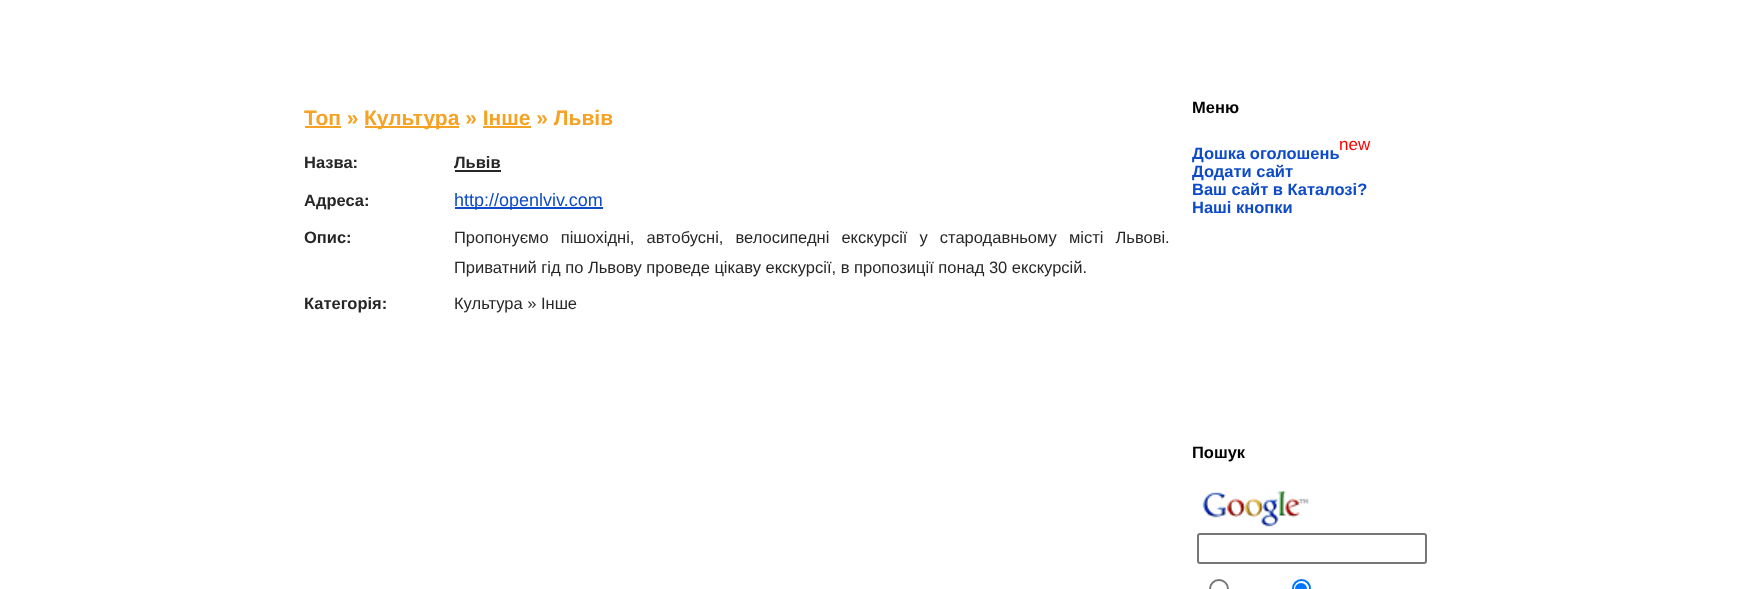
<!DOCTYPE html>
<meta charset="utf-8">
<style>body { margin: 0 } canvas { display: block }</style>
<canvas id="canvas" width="1753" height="589"></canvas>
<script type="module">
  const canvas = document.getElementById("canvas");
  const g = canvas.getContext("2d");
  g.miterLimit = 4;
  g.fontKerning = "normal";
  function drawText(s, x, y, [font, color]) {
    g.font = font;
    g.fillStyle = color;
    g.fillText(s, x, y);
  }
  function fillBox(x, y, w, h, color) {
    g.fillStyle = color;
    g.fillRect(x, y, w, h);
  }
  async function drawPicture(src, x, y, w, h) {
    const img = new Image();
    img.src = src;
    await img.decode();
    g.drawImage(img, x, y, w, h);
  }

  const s1 = ["bold 21px Liberation Sans", "#F5A225"];
  const s2 = ["bold 16.5px Liberation Sans", "#272727"];
  const s3 = ["18px Liberation Sans", "#0D4BC8"];
  const s4 = ["16.5px Liberation Sans", "#272727"];
  const s5 = ["bold 16.5px Liberation Sans", "#000000"];
  const s6 = ["17px Liberation Sans", "#FF0000"];
  const s7 = ["bold 16.5px Liberation Sans", "#0D4BC8"];

  fillBox(0, 0, 1753, 589, "#FFFFFF");
  drawText("Топ »", 304, 125, s1);
  fillBox(305, 126, 36, 2, "#F5A225");
  fillBox(365, 126, 94, 2, "#F5A225");
  drawText("Культура » Інше » Львів", 364, 125, s1);
  fillBox(483, 126, 48, 2, "#F5A225");
  drawText("Назва:", 304, 168, s2);
  drawText("Львів", 454, 168, s2);
  fillBox(455, 170, 46, 2, "#272727");
  drawText("Адреса:", 304, 206, s2);
  fillBox(455, 207, 148, 2, "#0D4BC8");
  drawText("http://openlviv.com", 454, 206, s3);
  drawText("Опис:", 304, 243, s2);
  g.wordSpacing = "7.5px";
  drawText("Пропонуємо пішохідні, автобусні, велосипедні екскурсії у стародавньому місті Львові.", 454, 243, s4);
  g.wordSpacing = "0px";
  drawText("Приватний гід по Львову проведе цікаву екскурсії, в пропозиції понад 30 екскурсій.", 454, 273, s4);
  drawText("Категорія:", 304, 309, s2);
  drawText("Культура » Інше", 454, 309, s4);
  drawText("Меню", 1192, 113, s5);
  drawText("new", 1339, 150, s6);
  drawText("Дошка оголошень", 1192, 159, s7);
  drawText("Додати сайт", 1192, 177, s7);
  drawText("Ваш сайт в Каталозі?", 1192, 195, s7);
  drawText("Наші кнопки", 1192, 213, s7);
  drawText("Пошук", 1192, 458, s5);
  await drawPicture("pic1.png", 1202, 491, 107, 36);
  g.beginPath();
  g.roundRect(1198, 534, 228, 29, 2);
  g.strokeStyle = "#767676";
  g.lineWidth = 2;
  g.stroke();
  g.beginPath();
  g.arc(1219, 589, 9, 0, Math.PI * 2);
  g.stroke();
  g.beginPath();
  g.roundRect(1293, 580, 17, 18, 8.5);
  g.strokeStyle = "#0075FF";
  g.stroke();
  g.fillStyle = "#0075FF";
  g.beginPath();
  g.arc(1301, 589, 6, 0, Math.PI * 2);
  g.fill();
</script>
